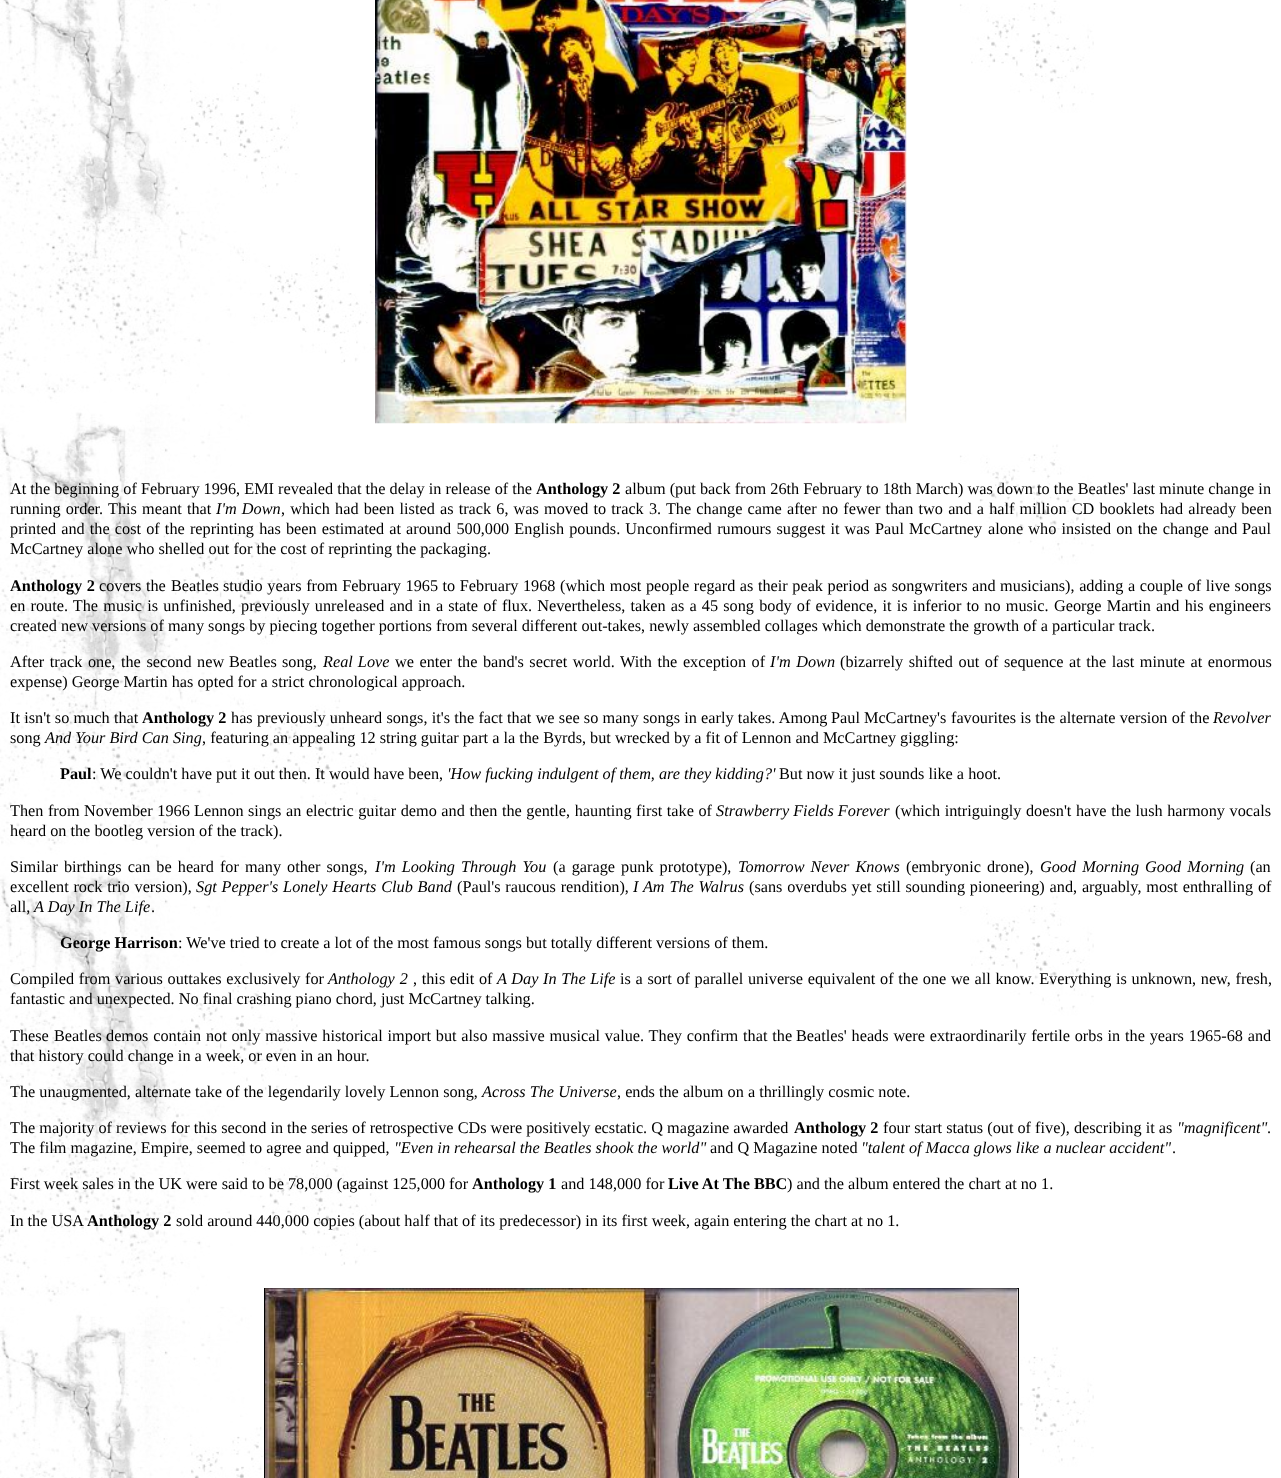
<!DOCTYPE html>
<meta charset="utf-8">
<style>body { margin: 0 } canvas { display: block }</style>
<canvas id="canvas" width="1281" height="1478"></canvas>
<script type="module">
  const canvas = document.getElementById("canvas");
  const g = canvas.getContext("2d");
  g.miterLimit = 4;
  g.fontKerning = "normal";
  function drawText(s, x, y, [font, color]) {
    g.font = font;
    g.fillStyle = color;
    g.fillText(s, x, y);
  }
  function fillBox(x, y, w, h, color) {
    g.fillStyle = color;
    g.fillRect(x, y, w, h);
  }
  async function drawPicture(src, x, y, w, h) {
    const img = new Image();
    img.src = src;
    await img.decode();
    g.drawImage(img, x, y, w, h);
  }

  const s1 = ["16.25px Liberation Serif", "#000000"];
  const s2 = ["bold 16.25px Liberation Serif", "#000000"];
  const s3 = ["italic 16.25px Liberation Serif", "#000000"];

  fillBox(0, 0, 1281, 1478, "#FFFFFF");
  await drawPicture("pic1.png", 0, 0, 1094, 1478);
  await drawPicture("pic2.png", 375, 0, 532, 424);
  drawText("At the beginning of February 1996, EMI revealed that the delay in release of the", 10, 494, s1);
  drawText("Anthology 2", 536, 494, s2);
  drawText("album (put back from 26th February to 18th March) was down to the Beatles' last minute change in", 625, 494, s1);
  g.wordSpacing = "1.1px";
  drawText("running order. This meant that", 10, 514, s1);
  drawText("I'm Down", 216, 514, s3);
  drawText(", which had been listed as track 6, was moved to track 3. The change came after no fewer than two and a half million CD booklets had already been", 281, 514, s1);
  drawText("printed and the cost of the reprinting has been estimated at around 500,000 English pounds. Unconfirmed rumours suggest it was", 10, 534, s1);
  drawText("Paul McCartney", 875, 534, s1);
  drawText("alone who insisted on the change and", 988, 534, s1);
  g.wordSpacing = "0px";
  drawText("Paul", 1242, 534, s1);
  drawText("McCartney alone who shelled out for the cost of reprinting the packaging.", 10, 554, s1);
  g.wordSpacing = "0.5px";
  drawText("Anthology 2", 10, 591, s2);
  drawText("covers the", 99, 591, s1);
  g.wordSpacing = "0px";
  drawText("Beatles", 171, 591, s1);
  g.wordSpacing = "0.5px";
  drawText("studio years from February 1965 to February 1968 (which most people regard as their peak period as songwriters and musicians), adding a couple of live songs", 223, 591, s1);
  g.wordSpacing = "1.1px";
  drawText("en route. The music is unfinished, previously unreleased and in a state of flux. Nevertheless, taken as a 45 song body of evidence, it is inferior to no music.", 10, 611, s1);
  drawText("George Martin", 1054, 611, s1);
  drawText("and his engineers", 1156, 611, s1);
  g.wordSpacing = "0px";
  drawText("created new versions of many songs by piecing together portions from several different out-takes, newly assembled collages which demonstrate the growth of a particular track.", 10, 631, s1);
  g.wordSpacing = "1.5px";
  drawText("After track one, the second new", 10, 667, s1);
  g.wordSpacing = "0px";
  drawText("Beatles", 229, 667, s1);
  drawText("song,", 282, 667, s1);
  g.wordSpacing = "1px";
  drawText("Real Love", 323, 667, s3);
  g.wordSpacing = "1.5px";
  drawText("we enter the band's secret world. With the exception of", 395, 667, s1);
  drawText("I'm Down", 770, 667, s3);
  drawText("(bizarrely shifted out of sequence at the last minute at enormous", 840, 667, s1);
  g.wordSpacing = "0px";
  drawText("expense) George Martin has opted for a strict chronological approach.", 10, 687, s1);
  g.wordSpacing = "0.2px";
  drawText("It isn't so much that", 10, 723, s1);
  g.wordSpacing = "0px";
  drawText("Anthology 2", 142, 723, s2);
  g.wordSpacing = "0.2px";
  drawText("has previously unheard songs, it's the fact that we see so many songs in early takes. Among", 231, 723, s1);
  g.wordSpacing = "0px";
  drawText("Paul McCartney's", 831, 723, s1);
  g.wordSpacing = "0.2px";
  drawText("favourites is the alternate version of the", 951, 723, s1);
  g.wordSpacing = "0px";
  drawText("Revolver", 1213, 723, s3);
  drawText("song", 10, 743, s1);
  drawText("And Your Bird Can Sing", 45, 743, s3);
  drawText(", featuring an appealing 12 string guitar part a la the Byrds, but wrecked by a fit of Lennon and McCartney giggling:", 202, 743, s1);
  drawText("Paul", 60, 779, s2);
  drawText(": We couldn't have put it out then. It would have been,", 92, 779, s1);
  drawText("'How fucking indulgent of them, are they kidding?'", 447, 779, s3);
  drawText("But now it just sounds like a hoot.", 779, 779, s1);
  g.wordSpacing = "0.5px";
  drawText("Then from November 1966", 10, 816, s1);
  g.wordSpacing = "0px";
  drawText("Lennon", 194, 816, s1);
  g.wordSpacing = "0.5px";
  drawText("sings an electric guitar demo and then the gentle, haunting first take of", 248, 816, s1);
  g.wordSpacing = "0px";
  drawText("Strawberry Fields Forever", 716, 816, s3);
  g.wordSpacing = "0.5px";
  drawText("(which intriguingly doesn't have the lush harmony vocals", 895, 816, s1);
  g.wordSpacing = "0px";
  drawText("heard on the bootleg version of the track).", 10, 836, s1);
  g.wordSpacing = "2px";
  drawText("Similar birthings can be heard for many other songs,", 10, 872, s1);
  drawText("I'm Looking Through You", 375, 872, s3);
  drawText("(a garage punk prototype),", 553, 872, s1);
  drawText("Tomorrow Never Knows", 738, 872, s3);
  drawText("(embryonic drone),", 906, 872, s1);
  drawText("Good Morning Good Morning", 1040, 872, s3);
  g.wordSpacing = "0px";
  drawText("(an", 1250, 872, s1);
  g.wordSpacing = "0.75px";
  drawText("excellent rock trio version),", 10, 892, s1);
  drawText("Sgt Pepper's Lonely Hearts Club Band", 196, 892, s3);
  drawText("(Paul's raucous rendition),", 457, 892, s1);
  drawText("I Am The Walrus", 633, 892, s3);
  drawText("(sans overdubs yet still sounding pioneering) and, arguably, most enthralling of", 749, 892, s1);
  g.wordSpacing = "0px";
  drawText("all,", 10, 912, s1);
  drawText("A Day In The Life", 34, 912, s3);
  drawText(".", 151, 912, s1);
  drawText("George Harrison", 60, 948, s2);
  drawText(": We've tried to create a lot of the most famous songs but totally different versions of them.", 178, 948, s1);
  g.wordSpacing = "0.6px";
  drawText("Compiled from various outtakes exclusively for", 10, 984, s1);
  g.wordSpacing = "1px";
  drawText("Anthology 2", 328, 984, s3);
  g.wordSpacing = "0.6px";
  drawText(", this edit of", 413, 984, s1);
  drawText("A Day In The Life", 497, 984, s3);
  drawText("is a sort of parallel universe equivalent of the one we all know. Everything is unknown, new, fresh,", 620, 984, s1);
  g.wordSpacing = "0px";
  drawText("fantastic and unexpected. No final crashing piano chord, just McCartney talking.", 10, 1004, s1);
  drawText("These", 10, 1041, s1);
  drawText("Beatles", 54, 1041, s1);
  g.wordSpacing = "0.75px";
  drawText("demos contain not only massive historical import but also massive musical value. They confirm that the", 106, 1041, s1);
  drawText("Beatles' heads were extraordinarily fertile orbs in the years 1965-68 and", 796, 1041, s1);
  g.wordSpacing = "0px";
  drawText("that history could change in a week, or even in an hour.", 10, 1061, s1);
  drawText("The unaugmented, alternate take of the legendarily lovely Lennon song,", 10, 1097, s1);
  drawText("Across The Universe", 482, 1097, s3);
  drawText(", ends the album on a thrillingly cosmic note.", 617, 1097, s1);
  drawText("The majority of reviews for this second in the series of retrospective CDs were positively ecstatic. Q magazine awarded", 10, 1133, s1);
  drawText("Anthology 2", 794, 1133, s2);
  drawText("four start status (out of five), describing it as", 883, 1133, s1);
  drawText("\"magnificent\"", 1177, 1133, s3);
  drawText(".", 1267, 1133, s1);
  drawText("The film magazine, Empire, seemed to agree and quipped,", 10, 1153, s1);
  drawText("\"Even in rehearsal the Beatles shook the world\"", 394, 1153, s3);
  drawText("and Q Magazine noted", 710, 1153, s1);
  drawText("\"talent of Macca glows like a nuclear accident\"", 861, 1153, s3);
  drawText(".", 1172, 1153, s1);
  drawText("First week sales in the UK were said to be 78,000 (against 125,000 for", 10, 1189, s1);
  drawText("Anthology 1", 472, 1189, s2);
  drawText("and 148,000 for", 561, 1189, s1);
  drawText("Live At The BBC", 668, 1189, s2);
  drawText(") and the album entered the chart at no 1.", 787, 1189, s1);
  drawText("In the USA", 10, 1226, s1);
  drawText("Anthology 2", 87, 1226, s2);
  drawText("sold around 440,000 copies (about half that of its predecessor) in its first week, again entering the chart at no 1.", 176, 1226, s1);
  g.strokeStyle = "#000000";
  g.strokeRect(264.5, 1288.5, 754, 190);
  await drawPicture("pic3.png", 265, 1288, 753, 190);
</script>
